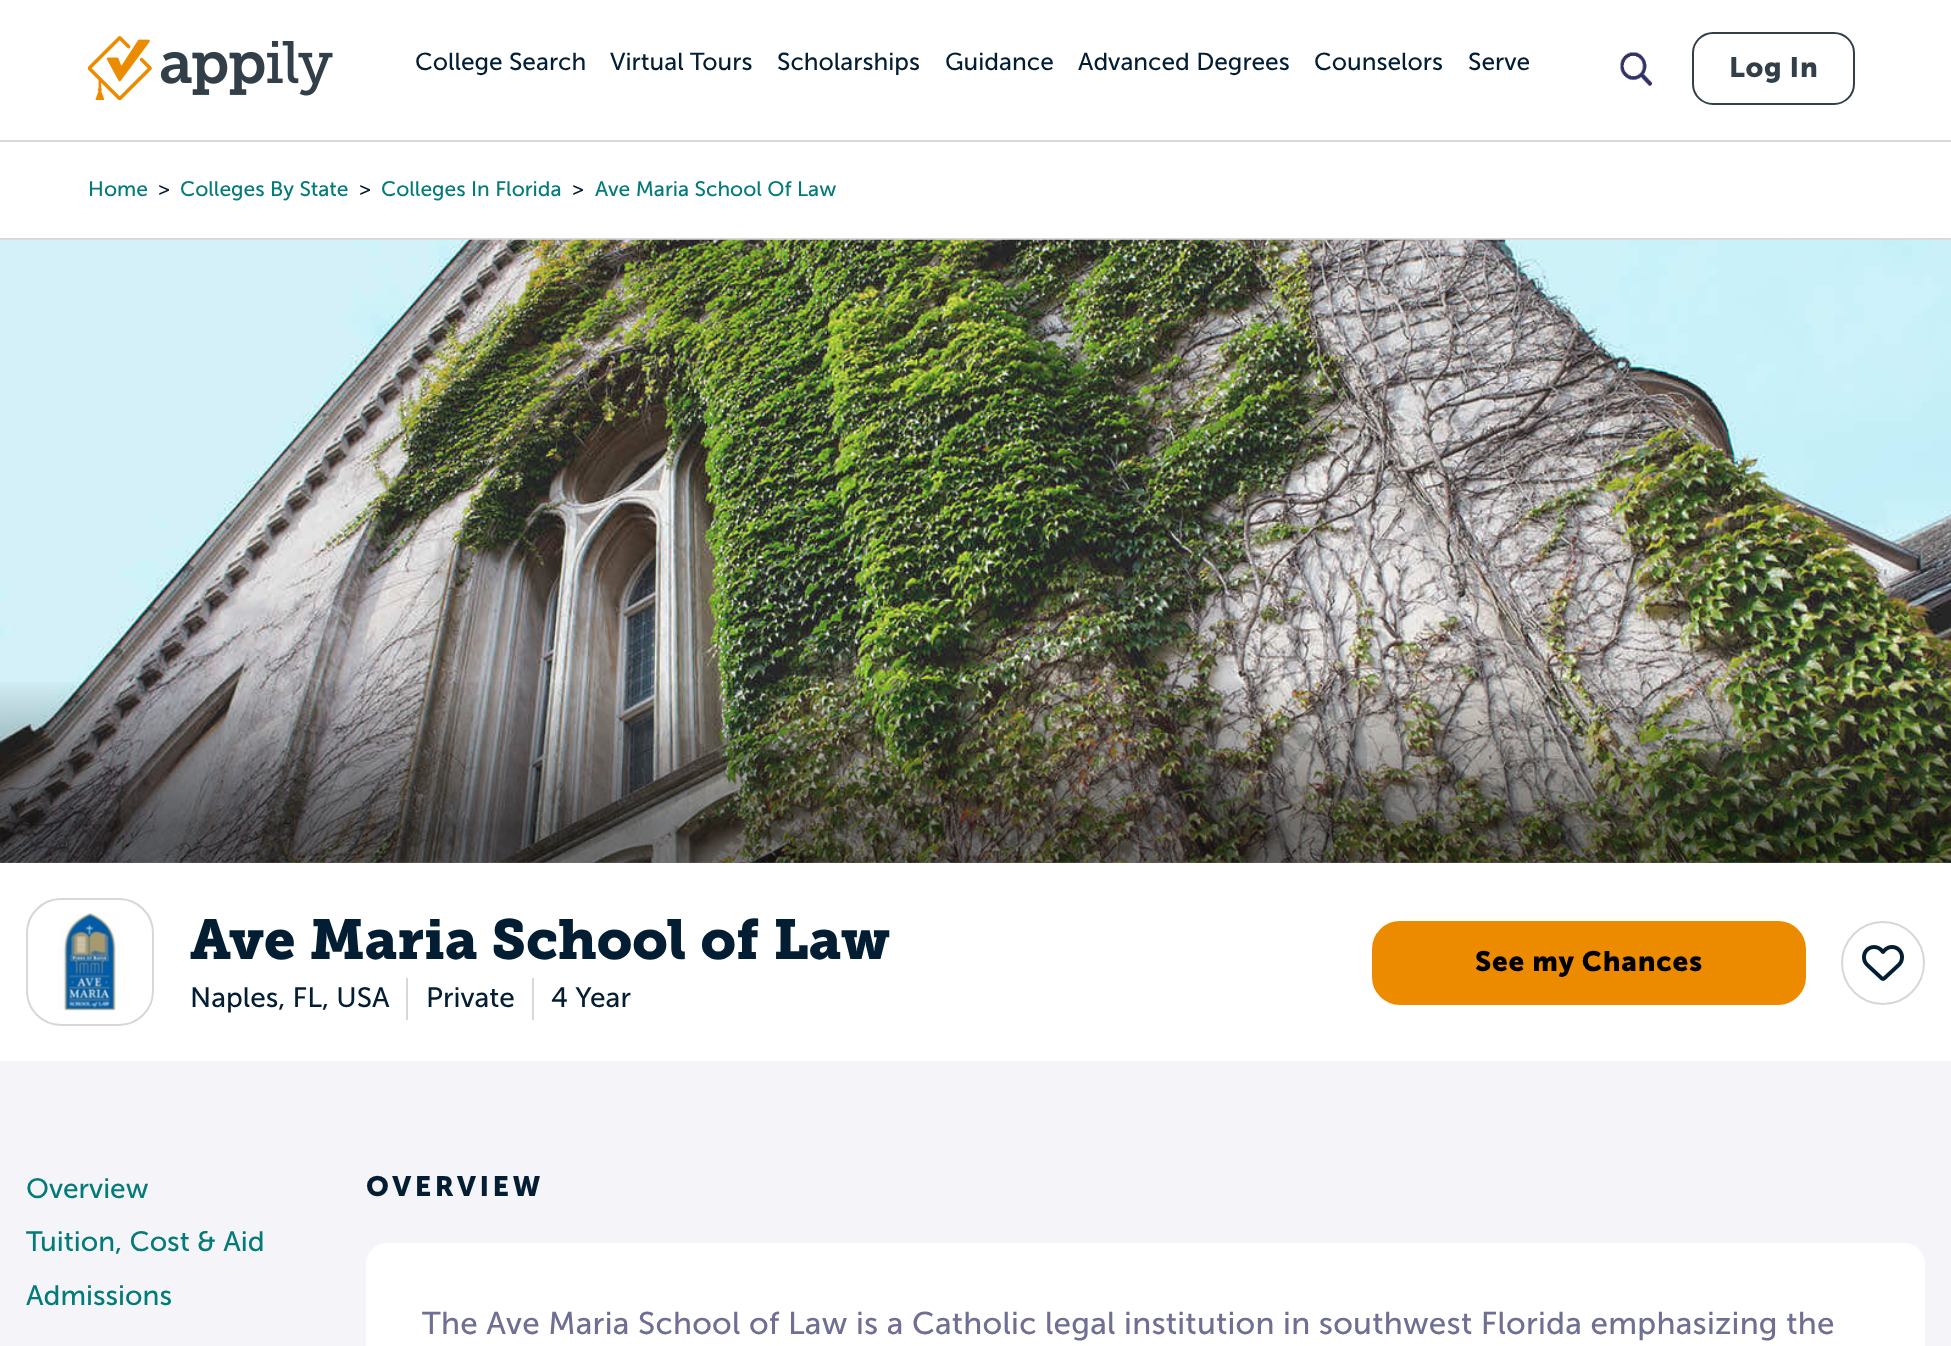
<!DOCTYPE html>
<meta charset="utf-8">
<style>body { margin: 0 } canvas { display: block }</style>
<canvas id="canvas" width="1951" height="1346"></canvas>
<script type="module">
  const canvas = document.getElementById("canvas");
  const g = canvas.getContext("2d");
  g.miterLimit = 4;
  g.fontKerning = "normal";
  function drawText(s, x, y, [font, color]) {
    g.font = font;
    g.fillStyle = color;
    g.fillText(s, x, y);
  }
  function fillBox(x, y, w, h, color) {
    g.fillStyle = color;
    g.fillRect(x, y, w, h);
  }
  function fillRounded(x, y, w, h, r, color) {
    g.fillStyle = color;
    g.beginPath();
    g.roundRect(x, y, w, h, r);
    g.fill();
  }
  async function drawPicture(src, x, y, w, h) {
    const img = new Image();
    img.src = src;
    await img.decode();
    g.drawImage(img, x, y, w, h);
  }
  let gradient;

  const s1 = ["24.5px 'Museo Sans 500'", "#031D32"];
  const s2 = ["bold 28px 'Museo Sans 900'", "#333F48"];
  const s3 = ["21px 'Museo Sans 500'", "#037B79"];
  const s4 = ["21px 'Museo Sans 500'", "#031D32"];
  const s5 = ["bold 56px 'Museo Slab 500'", "#031D32"];
  const s6 = ["28px 'Museo Sans 500'", "#031D32"];
  const s7 = ["bold 28px 'Museo Sans 900'", "#000000"];
  const s8 = ["28px 'Museo Sans 500'", "#037B79"];
  const s9 = ["bold 28px 'Museo Sans 900'", "#031D32"];
  const s10 = ["31.5px 'Museo Sans 500'", "#6E6F92"];

  fillBox(0, 0, 1951, 1346, "#FFFFFF");
  await drawPicture("pic1.png", 88, 36, 245, 64);
  drawText("College Search", 415, 70, s1);
  drawText("Virtual Tours", 610, 70, s1);
  drawText("Scholarships", 777, 70, s1);
  drawText("Guidance", 945, 70, s1);
  drawText("Advanced Degrees", 1078, 70, s1);
  drawText("Counselors", 1314, 70, s1);
  drawText("Serve", 1468, 70, s1);
  await drawPicture("pic2.png", 1620, 52, 32, 34);
  g.beginPath();
  g.roundRect(1693, 33, 161, 71, 20);
  g.strokeStyle = "#333F48";
  g.lineWidth = 2;
  g.stroke();
  g.letterSpacing = "0.75px";
  drawText("Log In", 1729, 77, s2);
  fillBox(0, 140, 1951, 2, "#D8D7D8");
  fillBox(0, 238, 1951, 2, "#D8D7D8");
  g.letterSpacing = "0px";
  drawText("Home", 88, 196, s3);
  drawText(">", 158, 196, s4);
  drawText("Colleges By State", 180, 196, s3);
  drawText(">", 359, 196, s4);
  drawText("Colleges In Florida", 381, 196, s3);
  drawText(">", 572, 196, s4);
  drawText("Ave Maria School Of Law", 595, 196, s3);
  fillBox(0, 862, 1951, 484, "#F5F5F9");
  await drawPicture("pic3.png", 0, 239, 1951, 624);
  gradient = g.createLinearGradient(976, 240, 976, 863);
  gradient.addColorStop(0.7, "rgba(11, 11, 11, 0)");
  gradient.addColorStop(0.93, "rgba(11, 11, 11, 0.5)");
  gradient.addColorStop(0.94, "rgba(0, 0, 0, 0.5)");
  g.fillStyle = gradient;
  g.fillRect(0, 682, 1951, 181);
  fillBox(0, 863, 1951, 198, "#FFFFFF");
  g.beginPath();
  g.roundRect(27, 899, 126, 126, 34);
  g.strokeStyle = "#D8D7D8";
  g.stroke();
  await drawPicture("pic4.png", 57, 913, 63, 98);
  drawText("Ave Maria School of Law", 190, 959, s5);
  fillBox(406, 978, 2, 42, "#D8D7D8");
  drawText("Naples, FL, USA", 190, 1007, s6);
  fillBox(532, 978, 2, 42, "#D8D7D8");
  drawText("Private", 426, 1007, s6);
  drawText("4 Year", 551, 1007, s6);
  g.fillStyle = "#ED8B00";
  g.beginPath();
  g.roundRect(1373, 922, 432, 82, 27);
  g.fill();
  g.strokeStyle = "#ED8B00";
  g.stroke();
  g.letterSpacing = "0.75px";
  drawText("See my Chances", 1475, 971, s7);
  g.beginPath();
  g.arc(1883, 963, 41, 0, Math.PI * 2);
  g.strokeStyle = "#D8D7D8";
  g.stroke();
  await drawPicture("pic5.png", 1862, 945, 42, 36);
  g.letterSpacing = "0px";
  drawText("Overview", 26, 1198, s8);
  drawText("Tuition, Cost & Aid", 26, 1251, s8);
  drawText("Admissions", 26, 1305, s8);
  g.letterSpacing = "3.5px";
  drawText("OVERVIEW", 366, 1196, s9);
  fillRounded(366, 1243, 1559, 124, 21, "#FFFFFF");
  g.letterSpacing = "0.25px";
  drawText("The Ave Maria School of Law is a Catholic legal institution in southwest Florida emphasizing the", 422, 1334, s10);
</script>
